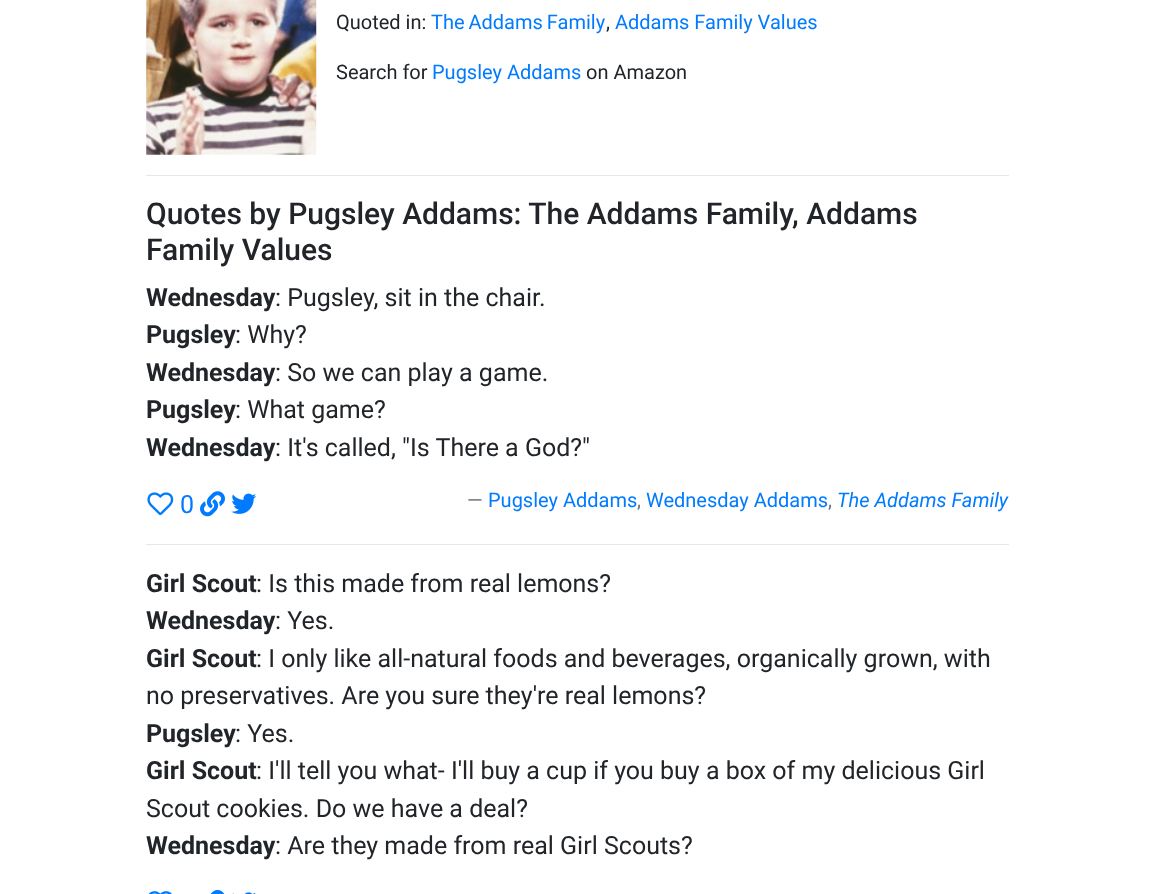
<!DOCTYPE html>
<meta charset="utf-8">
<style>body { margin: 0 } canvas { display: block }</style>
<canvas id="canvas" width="1153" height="894"></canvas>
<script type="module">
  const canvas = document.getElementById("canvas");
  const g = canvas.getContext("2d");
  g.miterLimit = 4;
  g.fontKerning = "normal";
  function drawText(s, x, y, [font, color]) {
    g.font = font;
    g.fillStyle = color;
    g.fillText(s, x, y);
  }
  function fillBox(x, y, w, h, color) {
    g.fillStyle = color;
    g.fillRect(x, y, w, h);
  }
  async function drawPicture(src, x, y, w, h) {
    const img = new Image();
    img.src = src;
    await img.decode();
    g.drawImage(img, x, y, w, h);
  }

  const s1 = ["20px Roboto", "#212529"];
  const s2 = ["20px Roboto", "#007BFF"];
  const s3 = ["500 30px Roboto", "#212529"];
  const s4 = ["bold 25px Roboto", "#212529"];
  const s5 = ["25px Roboto", "#212529"];
  const s6 = ["25px Roboto", "#007BFF"];
  const s7 = ["20px Roboto", "#6C757D"];
  const s8 = ["italic 20px Roboto", "#007BFF"];

  fillBox(0, 0, 1153, 894, "#FFFFFF");
  await drawPicture("pic1.png", 146, 0, 171, 155);
  drawText("Quoted in:", 336, 29, s1);
  g.wordSpacing = "-1px";
  drawText("The Addams Family", 431, 29, s2);
  g.wordSpacing = "0px";
  drawText(",", 606, 29, s1);
  drawText("Addams Family Values", 615, 29, s2);
  drawText("Search for", 336, 79, s1);
  drawText("Pugsley Addams", 432, 79, s2);
  drawText("on Amazon", 586, 79, s1);
  fillBox(146, 175, 863, 1, "#E6E6E6");
  drawText("Quotes by Pugsley Addams: The Addams Family, Addams", 146, 224, s3);
  drawText("Family Values", 146, 260, s3);
  drawText("Wednesday", 146, 306, s4);
  drawText(": Pugsley, sit in the chair.", 275, 306, s5);
  drawText("Pugsley", 146, 343, s4);
  drawText(": Why?", 235, 343, s5);
  drawText("Wednesday", 146, 381, s4);
  drawText(": So we can play a game.", 275, 381, s5);
  drawText("Pugsley", 146, 418, s4);
  drawText(": What game?", 235, 418, s5);
  drawText("Wednesday", 146, 456, s4);
  drawText(": It's called, \"Is There a God?\"", 275, 456, s5);
  await drawPicture("pic2.png", 147, 492, 27, 24);
  drawText("0", 180, 513, s6);
  await drawPicture("pic3.png", 200, 491, 25, 26);
  await drawPicture("pic4.png", 231, 493, 26, 21);
  drawText("—", 467, 507, s7);
  drawText("Pugsley Addams", 488, 507, s2);
  drawText("Wednesday Addams", 646, 507, s2);
  drawText("The Addams Family", 837, 507, s8);
  drawText(",", 637, 507, s7);
  drawText(",", 828, 507, s7);
  fillBox(146, 544, 863, 1, "#E6E6E6");
  drawText("Girl Scout", 146, 592, s4);
  drawText(": Is this made from real lemons?", 256, 592, s5);
  drawText("Wednesday", 146, 629, s4);
  drawText(": Yes.", 275, 629, s5);
  drawText("Girl Scout", 146, 667, s4);
  drawText(": I only like all-natural foods and beverages, organically grown, with", 256, 667, s5);
  drawText("no preservatives. Are you sure they're real lemons?", 146, 704, s5);
  drawText("Pugsley", 146, 742, s4);
  drawText(": Yes.", 235, 742, s5);
  drawText("Girl Scout", 146, 779, s4);
  drawText(": I'll tell you what- I'll buy a cup if you buy a box of my delicious Girl", 256, 779, s5);
  drawText("Scout cookies. Do we have a deal?", 146, 817, s5);
  drawText("Wednesday", 146, 854, s4);
  drawText(": Are they made from real Girl Scouts?", 275, 854, s5);
  await drawPicture("pic5.png", 148, 891, 24, 3);
  await drawPicture("pic6.png", 210, 890, 14, 4);
  await drawPicture("pic7.png", 232, 892, 24, 2);
</script>
